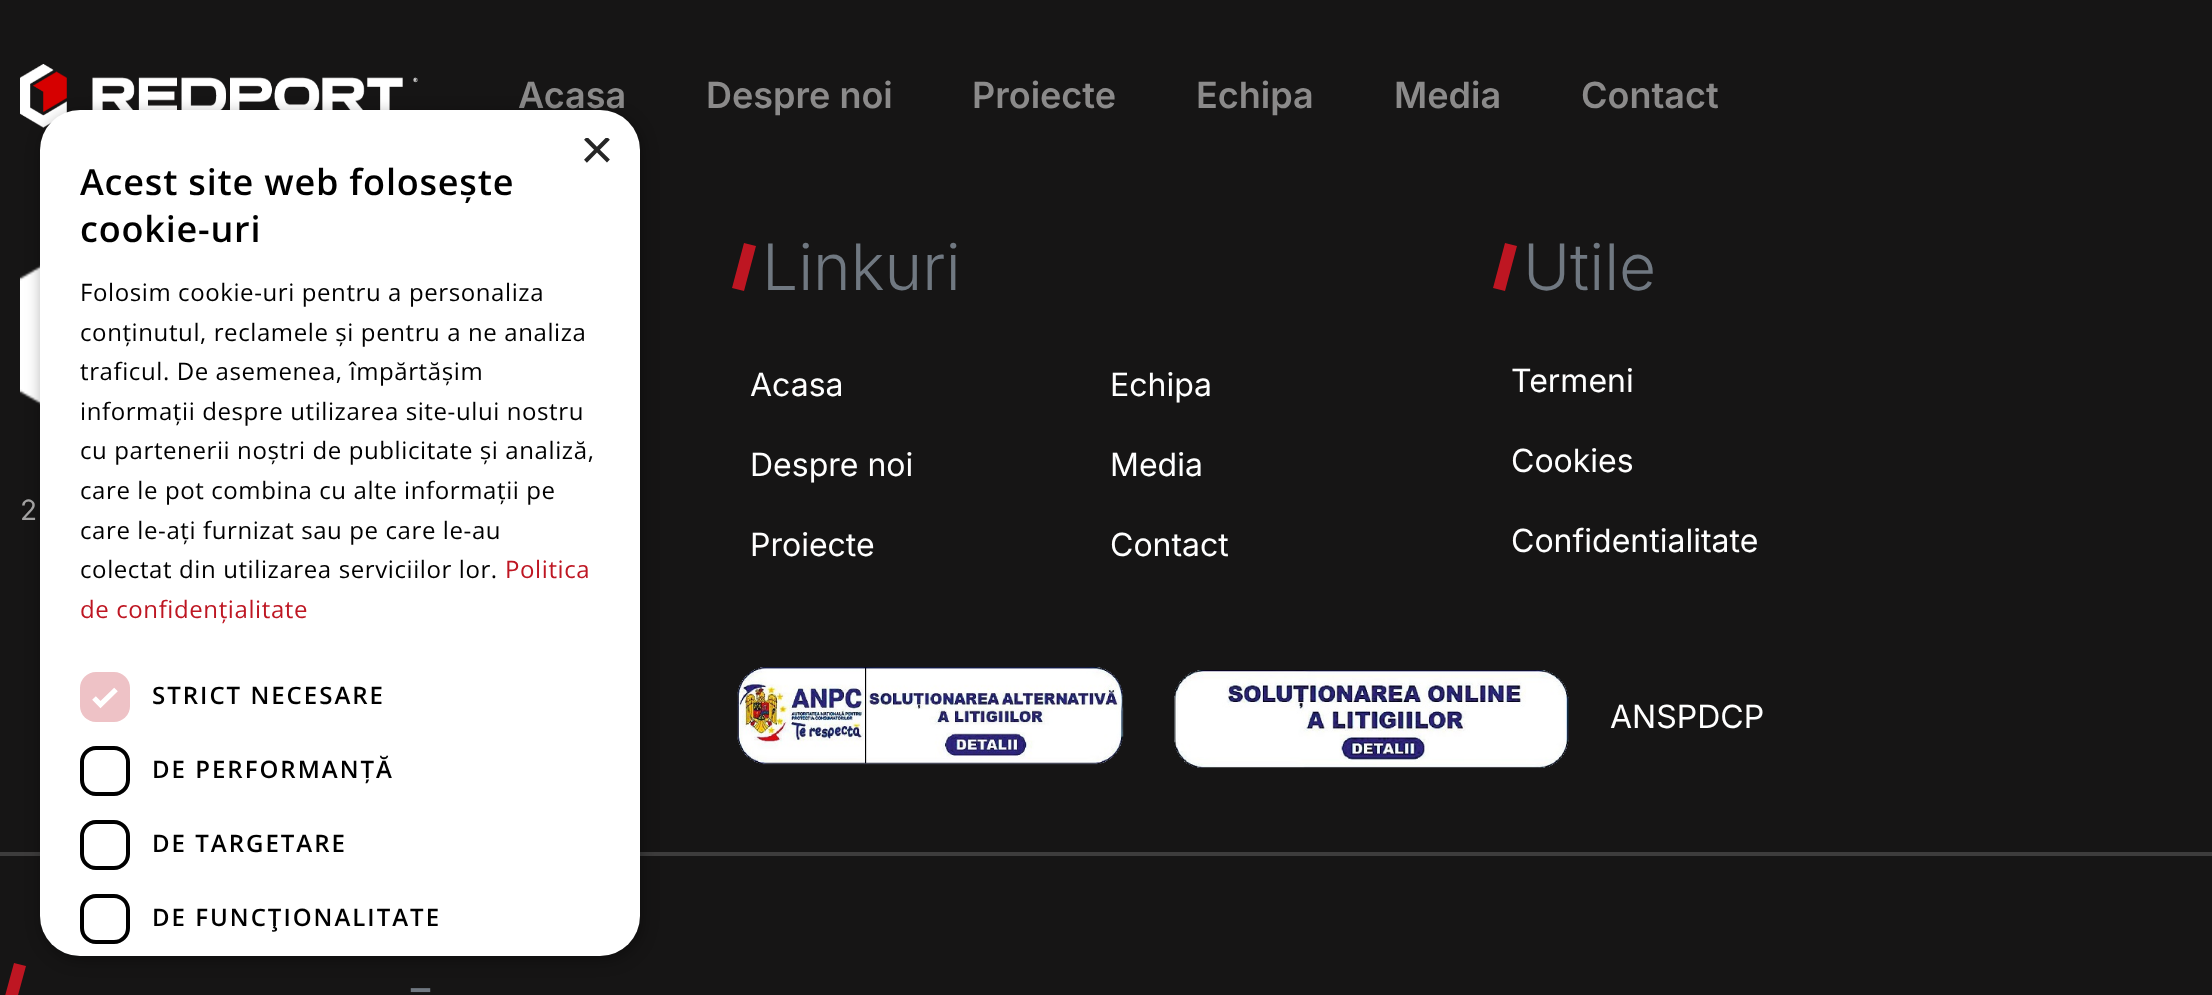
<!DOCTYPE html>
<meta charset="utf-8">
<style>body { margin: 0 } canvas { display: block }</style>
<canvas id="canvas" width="2212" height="995"></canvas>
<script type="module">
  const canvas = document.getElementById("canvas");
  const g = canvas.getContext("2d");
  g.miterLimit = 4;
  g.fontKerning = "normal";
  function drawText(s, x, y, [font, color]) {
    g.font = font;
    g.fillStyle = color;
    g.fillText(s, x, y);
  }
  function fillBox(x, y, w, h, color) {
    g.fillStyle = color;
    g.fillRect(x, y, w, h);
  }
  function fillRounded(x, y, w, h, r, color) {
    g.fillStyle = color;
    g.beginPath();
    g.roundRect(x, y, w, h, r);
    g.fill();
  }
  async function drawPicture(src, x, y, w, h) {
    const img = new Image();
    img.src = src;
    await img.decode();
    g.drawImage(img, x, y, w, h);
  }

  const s1 = ["600 36px Inter", "#8B8A8A"];
  const s2 = ["58px Liberation Sans", "#262626"];
  const s3 = ["600 36px Open Sans", "#000000"];
  const s4 = ["24px Open Sans", "#000000"];
  const s5 = ["24px Open Sans", "#BE1622"];
  const s6 = ["600 24px Open Sans", "#000000"];
  const s7 = ["28px Inter", "#A2A1A1"];
  const s8 = ["300 64px Inter", "#707881"];
  const s9 = ["32px Inter", "#FFFFFF"];

  fillBox(0, 0, 2212, 995, "#161515");
  await drawPicture("pic1.png", 20, 64, 398, 64);
  drawText("Acasa", 518, 108, s1);
  drawText("Despre noi", 706, 108, s1);
  drawText("Proiecte", 972, 108, s1);
  drawText("Echipa", 1196, 108, s1);
  drawText("Media", 1394, 108, s1);
  drawText("Contact", 1581, 108, s1);
  await drawPicture("pic2.png", 20, 265, 20, 140);
  fillBox(0, 852, 2212, 4, "#3D3C3C");
  g.fillStyle = "#BE1622";
  g.beginPath();
  g.moveTo(14, 963);
  g.lineTo(26, 966);
  g.lineTo(14, 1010);
  g.lineTo(2, 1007);
  g.closePath();
  g.fill();
  g.fillStyle = "rgba(0, 0, 0, 0.35)";
  g.filter = "blur(8px)";
  g.beginPath();
  g.roundRect(42, 114, 600, 846, 40);
  g.fill();
  g.filter = "none";
  fillRounded(40, 110, 600, 846, 40, "#FFFFFF");
  g.save();
  g.beginPath();
  g.rect(580, 138, 30, 30);
  g.clip();
  drawText("×", 580, 169, s2);
  g.restore();
  g.letterSpacing = "0.8px";
  drawText("Acest site web folosește", 80, 195, s3);
  drawText("cookie-uri", 80, 242, s3);
  g.letterSpacing = "0.6px";
  drawText("Folosim cookie-uri pentru a personaliza", 80, 301, s4);
  drawText("conținutul, reclamele și pentru a ne analiza", 80, 341, s4);
  drawText("traficul. De asemenea, împărtășim", 80, 380, s4);
  drawText("informații despre utilizarea site-ului nostru", 80, 420, s4);
  drawText("cu partenerii noștri de publicitate și analiză,", 80, 459, s4);
  drawText("care le pot combina cu alte informații pe", 80, 499, s4);
  drawText("care le-ați furnizat sau pe care le-au", 80, 539, s4);
  drawText("colectat din utilizarea serviciilor lor.", 80, 578, s4);
  drawText("Politica", 505, 578, s5);
  drawText("de confidențialitate", 80, 618, s5);
  fillRounded(80, 672, 50, 50, 16, "#EEC2C6");
  g.beginPath();
  g.moveTo(94, 698);
  g.lineTo(100.5, 704.5);
  g.lineTo(116, 689.5);
  g.strokeStyle = "#FFFFFF";
  g.lineWidth = 5.2;
  g.stroke();
  g.letterSpacing = "2px";
  drawText("STRICT NECESARE", 152, 704, s6);
  g.beginPath();
  g.roundRect(82, 748, 46, 46, 14);
  g.strokeStyle = "#000000";
  g.lineWidth = 4;
  g.stroke();
  drawText("DE PERFORMANȚĂ", 152, 778, s6);
  g.beginPath();
  g.roundRect(82, 822, 46, 46, 14);
  g.stroke();
  drawText("DE TARGETARE", 152, 852, s6);
  g.beginPath();
  g.roundRect(82, 896, 46, 46, 14);
  g.stroke();
  drawText("DE FUNCŢIONALITATE", 152, 926, s6);
  g.letterSpacing = "0px";
  drawText("2", 20, 520, s7);
  g.fillStyle = "#BE1622";
  g.beginPath();
  g.moveTo(744, 243);
  g.lineTo(756, 246);
  g.lineTo(744, 291);
  g.lineTo(732, 288);
  g.closePath();
  g.fill();
  drawText("Linkuri", 762, 290, s8);
  drawText("Acasa", 750, 396, s9);
  drawText("Echipa", 1110, 396, s9);
  drawText("Despre noi", 750, 476, s9);
  drawText("Media", 1110, 476, s9);
  drawText("Proiecte", 750, 556, s9);
  drawText("Contact", 1110, 556, s9);
  g.fillStyle = "#BE1622";
  g.beginPath();
  g.moveTo(1505, 243);
  g.lineTo(1517, 246);
  g.lineTo(1505, 291);
  g.lineTo(1493, 288);
  g.closePath();
  g.fill();
  drawText("Utile", 1523, 290, s8);
  drawText("Termeni", 1511, 392, s9);
  drawText("Cookies", 1511, 472, s9);
  drawText("Confidentialitate", 1511, 552, s9);
  await drawPicture("pic3.png", 737, 667, 387, 98);
  await drawPicture("pic4.png", 1174, 670, 395, 98);
  drawText("ANSPDCP", 1610, 728, s9);
  drawText("-", 406, 1010, s8);
</script>
